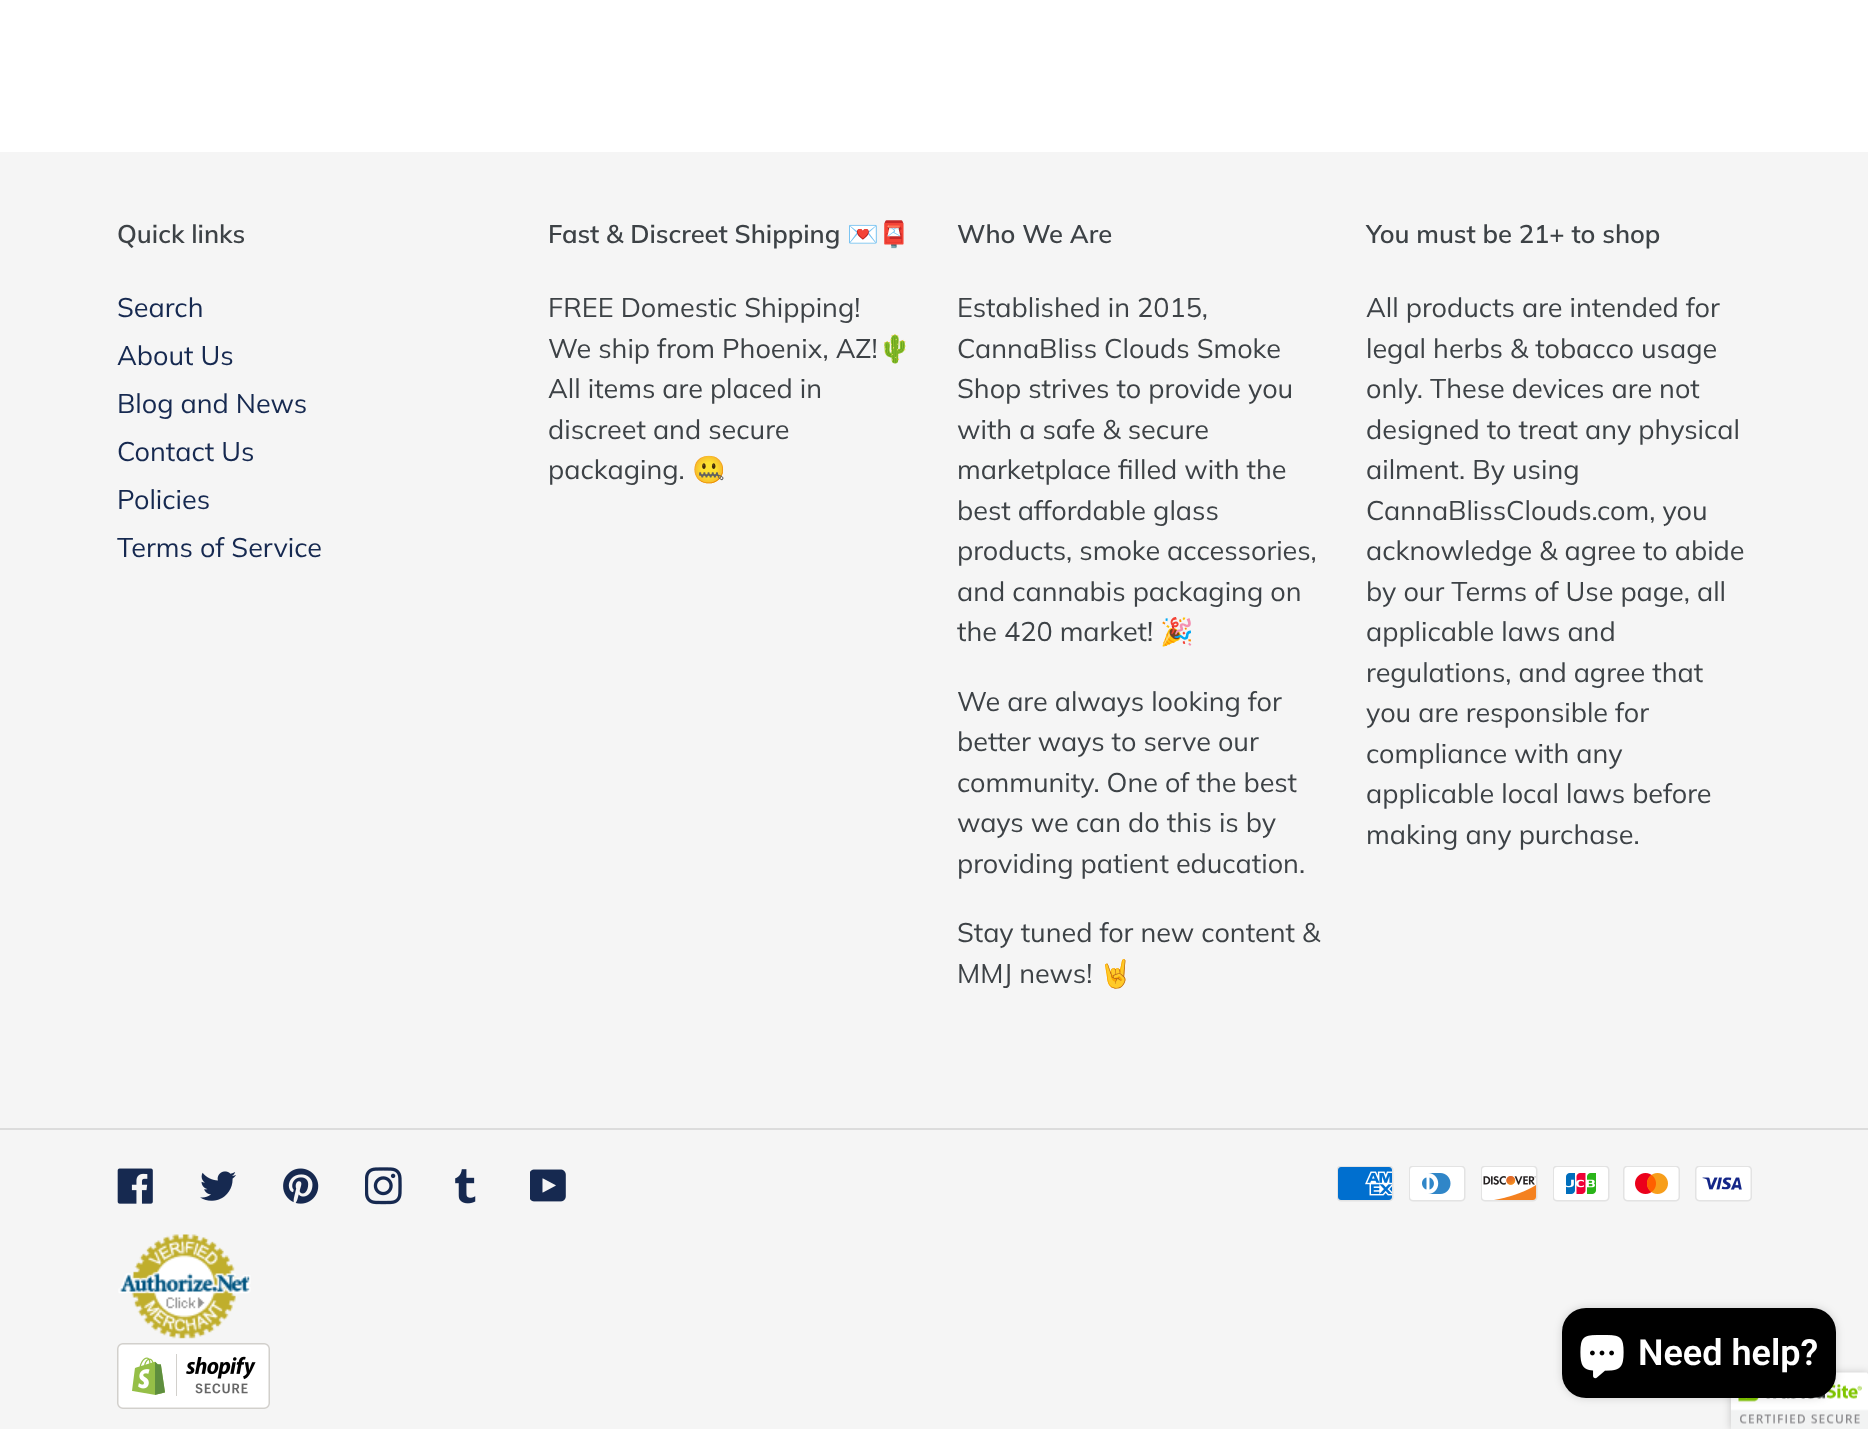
<!DOCTYPE html>
<meta charset="utf-8">
<style>body { margin: 0 } canvas { display: block }</style>
<canvas id="canvas" width="1868" height="1429"></canvas>
<script type="module">
  const canvas = document.getElementById("canvas");
  const g = canvas.getContext("2d");
  g.miterLimit = 4;
  g.fontKerning = "normal";
  function drawText(s, x, y, [font, color]) {
    g.font = font;
    g.fillStyle = color;
    g.fillText(s, x, y);
  }
  function fillBox(x, y, w, h, color) {
    g.fillStyle = color;
    g.fillRect(x, y, w, h);
  }
  function fillRounded(x, y, w, h, r, color) {
    g.fillStyle = color;
    g.beginPath();
    g.roundRect(x, y, w, h, r);
    g.fill();
  }
  async function drawPicture(src, x, y, w, h) {
    const img = new Image();
    img.src = src;
    await img.decode();
    g.drawImage(img, x, y, w, h);
  }

  const s1 = ["600 25.5px Muli", "#3D4246"];
  const s2 = ["27px Muli", "#162950"];
  const s3 = ["bold 25.5px Noto Color Emoji", "#3D4246"];
  const s4 = ["27px Muli", "#3D4246"];
  const s5 = ["27px Noto Color Emoji", "#3D4246"];
  const s6 = ["600 36px Roboto", "#FFFFFF"];

  fillBox(0, 0, 1868, 1429, "#FFFFFF");
  fillBox(0, 152, 1868, 1277, "#F5F5F5");
  drawText("Quick links", 117, 243, s1);
  drawText("Search", 117, 317, s2);
  drawText("About Us", 117, 365, s2);
  drawText("Blog and News", 117, 413, s2);
  drawText("Contact Us", 117, 461, s2);
  drawText("Policies", 117, 509, s2);
  drawText("Terms of Service", 117, 557, s2);
  drawText("Fast & Discreet Shipping", 548, 243, s1);
  drawText("💌📮", 847, 243, s3);
  drawText("FREE Domestic Shipping!", 548, 317, s4);
  drawText("We ship from Phoenix, AZ!", 548, 358, s4);
  drawText("🌵", 878, 358, s5);
  drawText("All items are placed in", 548, 398, s4);
  drawText("discreet and secure", 548, 439, s4);
  drawText("packaging.", 548, 479, s4);
  drawText("🤐", 692, 479, s5);
  drawText("Who We Are", 957, 243, s1);
  drawText("Established in 2015,", 957, 317, s4);
  drawText("CannaBliss Clouds Smoke", 957, 358, s4);
  drawText("Shop strives to provide you", 957, 398, s4);
  drawText("with a safe & secure", 957, 439, s4);
  drawText("marketplace filled with the", 957, 479, s4);
  drawText("best affordable glass", 957, 520, s4);
  drawText("products, smoke accessories,", 957, 560, s4);
  drawText("and cannabis packaging on", 957, 601, s4);
  drawText("the 420 market!", 957, 641, s4);
  drawText("🎉", 1160, 641, s5);
  drawText("We are always looking for", 957, 711, s4);
  drawText("better ways to serve our", 957, 751, s4);
  drawText("community. One of the best", 957, 792, s4);
  drawText("ways we can do this is by", 957, 832, s4);
  drawText("providing patient education.", 957, 873, s4);
  drawText("Stay tuned for new content &", 957, 942, s4);
  drawText("MMJ news!", 957, 983, s4);
  drawText("🤘", 1099, 983, s5);
  drawText("You must be 21+ to shop", 1366, 243, s1);
  drawText("All products are intended for", 1366, 317, s4);
  drawText("legal herbs & tobacco usage", 1366, 358, s4);
  drawText("only. These devices are not", 1366, 398, s4);
  drawText("designed to treat any physical", 1366, 439, s4);
  drawText("ailment. By using", 1366, 479, s4);
  drawText("CannaBlissClouds.com, you", 1366, 520, s4);
  drawText("acknowledge & agree to abide", 1366, 560, s4);
  drawText("by our Terms of Use page, all", 1366, 601, s4);
  drawText("applicable laws and", 1366, 641, s4);
  drawText("regulations, and agree that", 1366, 682, s4);
  drawText("you are responsible for", 1366, 722, s4);
  drawText("compliance with any", 1366, 763, s4);
  drawText("applicable local laws before", 1366, 803, s4);
  drawText("making any purchase.", 1366, 844, s4);
  fillBox(0, 1128, 1868, 2, "#DCDCDC");
  await drawPicture("pic1.png", 117, 1168, 36, 36);
  await drawPicture("pic2.png", 200, 1171, 36, 30);
  await drawPicture("pic3.png", 283, 1168, 36, 36);
  await drawPicture("pic4.png", 365, 1167, 37, 38);
  await drawPicture("pic5.png", 455, 1169, 21, 35);
  await drawPicture("pic6.png", 530, 1169, 36, 33);
  await drawPicture("pic7.png", 1337, 1166, 57, 36);
  await drawPicture("pic8.png", 1409, 1166, 57, 36);
  await drawPicture("pic9.png", 1481, 1166, 57, 36);
  await drawPicture("pic10.png", 1553, 1166, 57, 36);
  await drawPicture("pic11.png", 1623, 1166, 57, 36);
  await drawPicture("pic12.png", 1695, 1166, 57, 36);
  await drawPicture("pic13.png", 118, 1234, 133, 105);
  await drawPicture("pic14.png", 117, 1343, 153, 66);
  g.fillStyle = "rgba(0, 0, 0, 0.2)";
  g.filter = "blur(4px)";
  g.beginPath();
  g.roundRect(1731, 1373, 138, 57, 3);
  g.fill();
  g.filter = "none";
  await drawPicture("pic16.png", 1731, 1372, 137, 57);
  g.fillStyle = "rgba(0, 0, 0, 0.15)";
  g.filter = "blur(4px)";
  g.beginPath();
  g.roundRect(1562, 1308, 274, 90, 24);
  g.fill();
  g.filter = "none";
  fillRounded(1562, 1308, 274, 90, 24, "#000000");
  await drawPicture("pic15.png", 1580, 1335, 44, 44);
  drawText("Need help?", 1638, 1365, s6);
</script>
